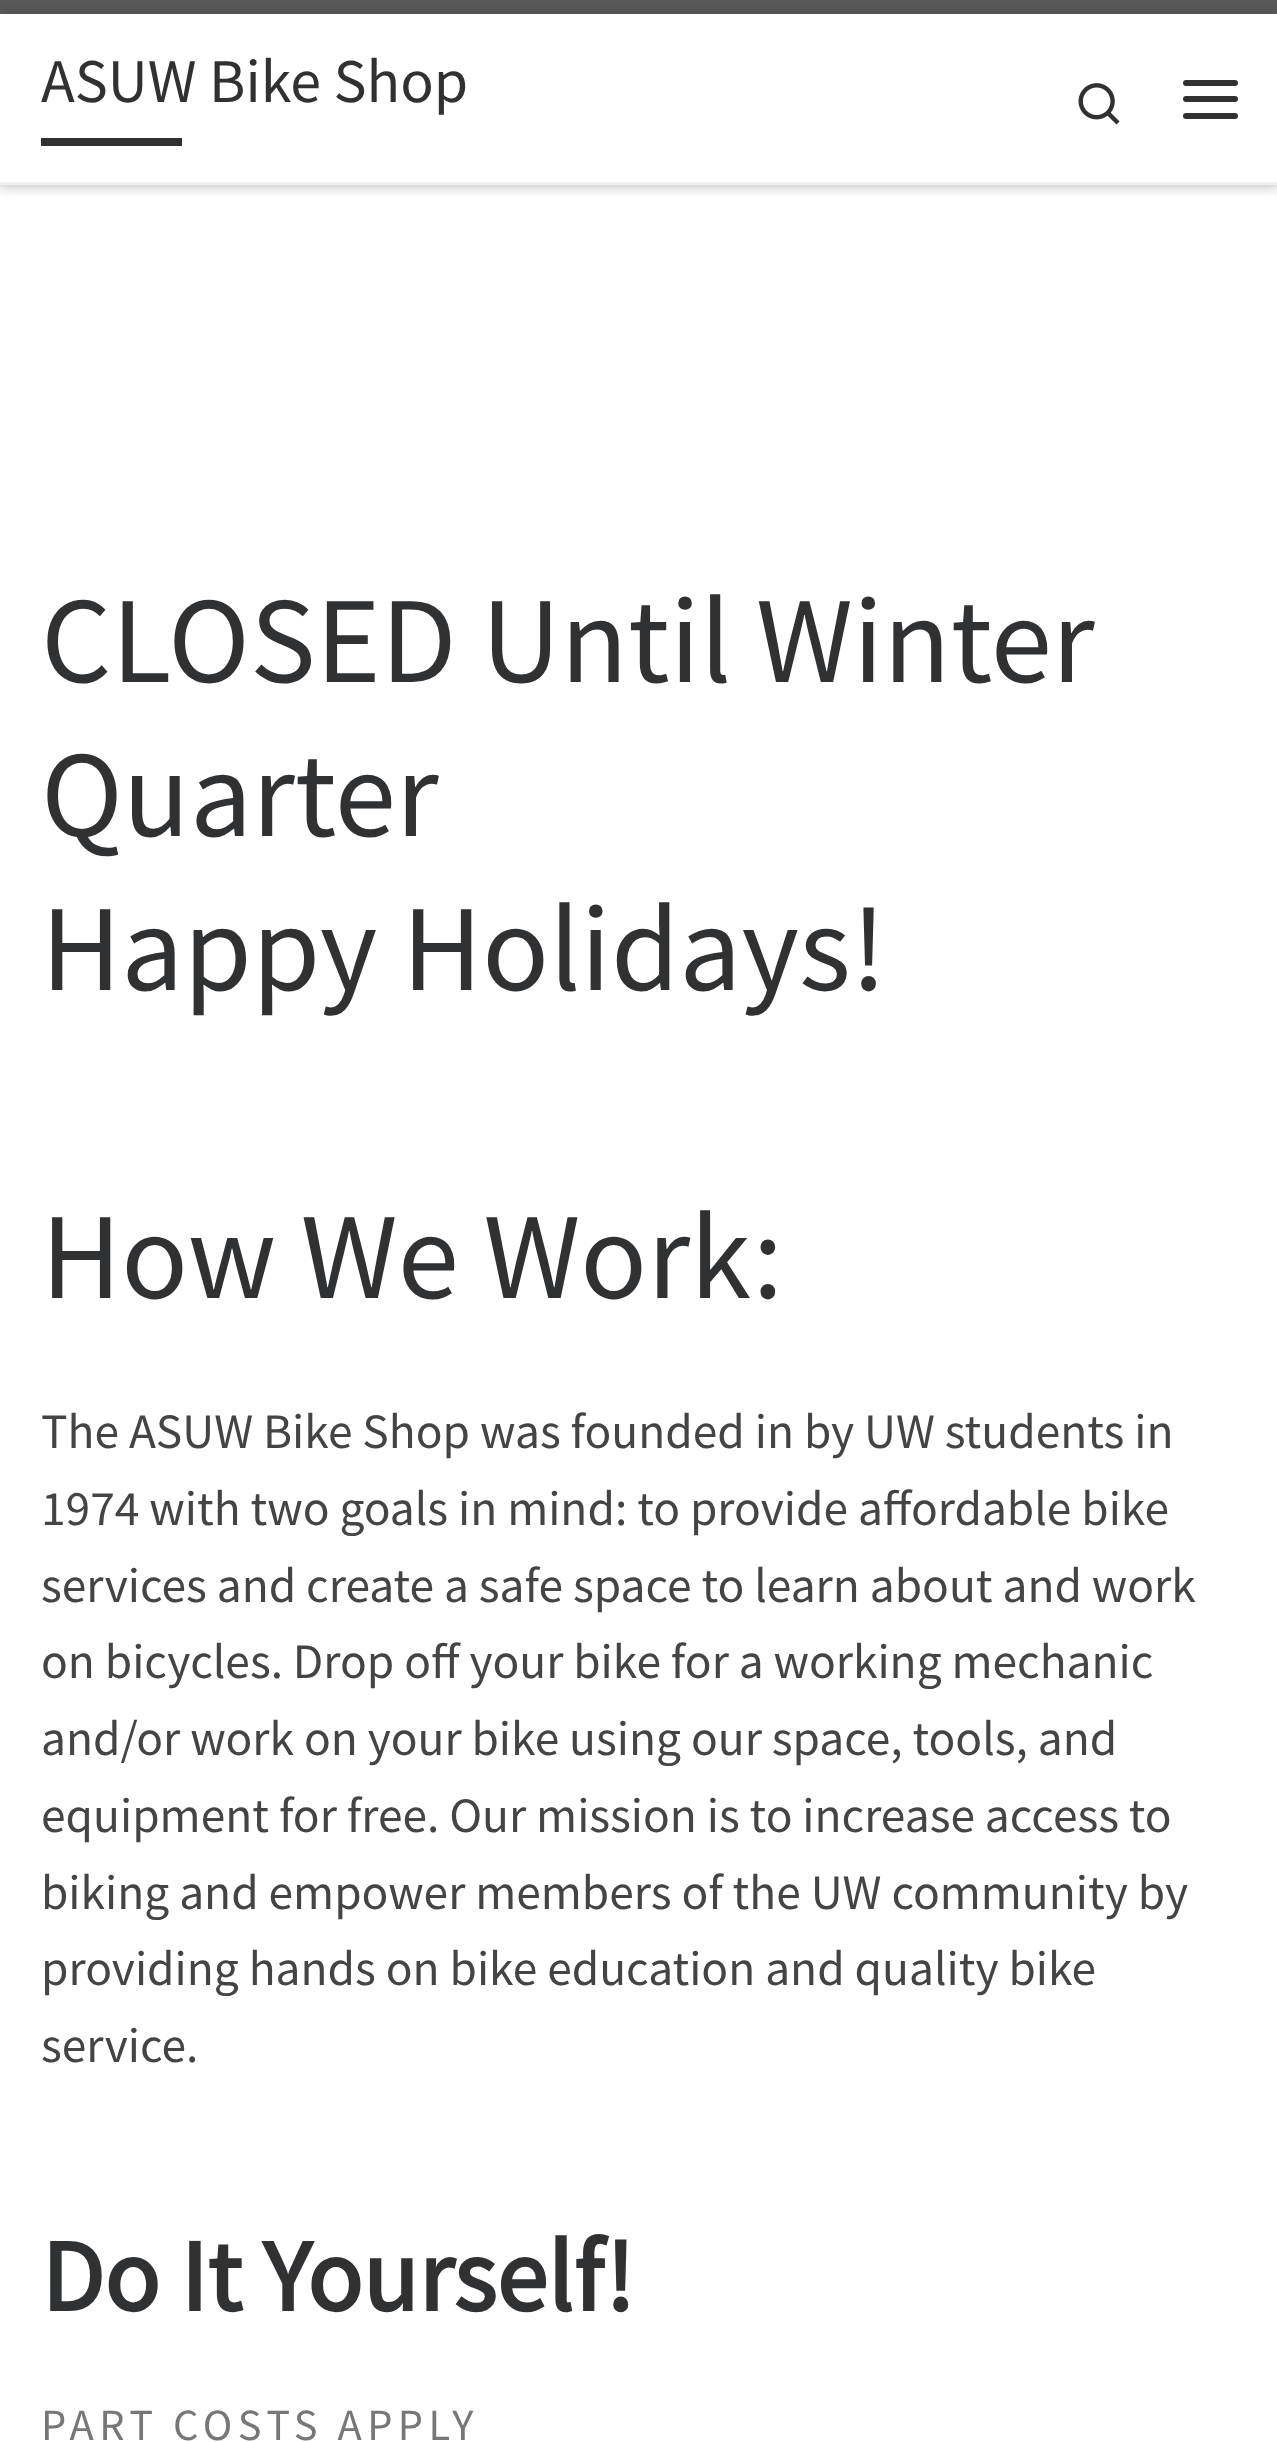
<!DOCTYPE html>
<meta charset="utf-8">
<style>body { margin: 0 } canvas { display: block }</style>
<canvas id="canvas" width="1277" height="2442"></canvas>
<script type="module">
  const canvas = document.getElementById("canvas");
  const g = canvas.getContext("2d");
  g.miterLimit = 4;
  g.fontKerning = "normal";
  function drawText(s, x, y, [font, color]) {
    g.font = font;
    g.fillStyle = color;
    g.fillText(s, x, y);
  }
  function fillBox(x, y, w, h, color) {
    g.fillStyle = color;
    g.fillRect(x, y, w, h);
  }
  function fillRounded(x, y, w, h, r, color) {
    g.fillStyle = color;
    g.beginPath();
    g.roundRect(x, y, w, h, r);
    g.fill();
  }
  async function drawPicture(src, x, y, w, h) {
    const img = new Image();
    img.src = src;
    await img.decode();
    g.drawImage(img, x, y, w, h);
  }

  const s1 = ["62px Source Sans Pro", "#303133"];
  const s2 = ["123.25px Source Sans Pro", "#303133"];
  const s3 = ["49.5px Source Sans Pro", "#444444"];
  const s4 = ["bold 102.5px Source Sans Pro", "#303133"];
  const s5 = ["44.5px Source Sans Pro", "#777777"];

  fillBox(0, 0, 1277, 2442, "#FFFFFF");
  g.save();
  g.beginPath();
  g.rect(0, 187, 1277, 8);
  g.clip();
  g.fillStyle = "rgba(102, 102, 102, 0.08)";
  g.filter = "blur(3px)";
  g.beginPath();
  g.rect(0, 6, 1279, 187);
  g.fill();
  g.filter = "none";
  g.restore();
  fillBox(0, 0, 1277, 14, "#5A5A5A");
  g.fillStyle = "#EFEFEF";
  g.beginPath();
  g.moveTo(0, 184);
  g.lineTo(0, 187);
  g.lineTo(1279, 187);
  g.lineTo(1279, 17);
  g.lineTo(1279, 184);
  g.closePath();
  g.fill();
  g.save();
  g.beginPath();
  g.moveTo(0, 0);
  g.lineTo(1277, 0);
  g.lineTo(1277, 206);
  g.lineTo(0, 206);
  g.closePath();
  g.moveTo(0, 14);
  g.lineTo(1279, 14);
  g.lineTo(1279, 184);
  g.lineTo(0, 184);
  g.closePath();
  g.clip("evenodd");
  g.fillStyle = "rgba(0, 0, 0, 0.2)";
  g.filter = "blur(7px)";
  g.beginPath();
  g.rect(0, 14, 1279, 170);
  g.fill();
  g.filter = "none";
  g.restore();
  drawText("ASUW Bike Shop", 41, 102, s1);
  fillBox(41, 138, 141, 8, "#313131");
  await drawPicture("pic1.png", 1078, 83, 42, 42);
  fillRounded(1183, 80, 55, 6, 3, "#313131");
  fillRounded(1183, 96, 55, 6, 3, "#313131");
  fillRounded(1183, 113, 55, 6, 3, "#313131");
  fillBox(0, 182, 1277, 3, "#F0F0F0");
  drawText("CLOSED Until Winter", 41, 682, s2);
  drawText("Quarter", 41, 836, s2);
  drawText("Happy Holidays!", 41, 990, s2);
  drawText("How We Work:", 41, 1298, s2);
  drawText("The ASUW Bike Shop was founded in by UW students in", 41, 1448, s3);
  drawText("1974 with two goals in mind: to provide affordable bike", 41, 1525, s3);
  drawText("services and create a safe space to learn about and work", 41, 1602, s3);
  drawText("on bicycles. Drop off your bike for a working mechanic", 41, 1678, s3);
  drawText("and/or work on your bike using our space, tools, and", 41, 1755, s3);
  drawText("equipment for free. Our mission is to increase access to", 41, 1832, s3);
  drawText("biking and empower members of the UW community by", 41, 1909, s3);
  drawText("providing hands on bike education and quality bike", 41, 1985, s3);
  drawText("service.", 41, 2062, s3);
  drawText("Do It Yourself!", 41, 2311, s4);
  g.letterSpacing = "5.5px";
  drawText("PART COSTS APPLY", 41, 2440, s5);
</script>
